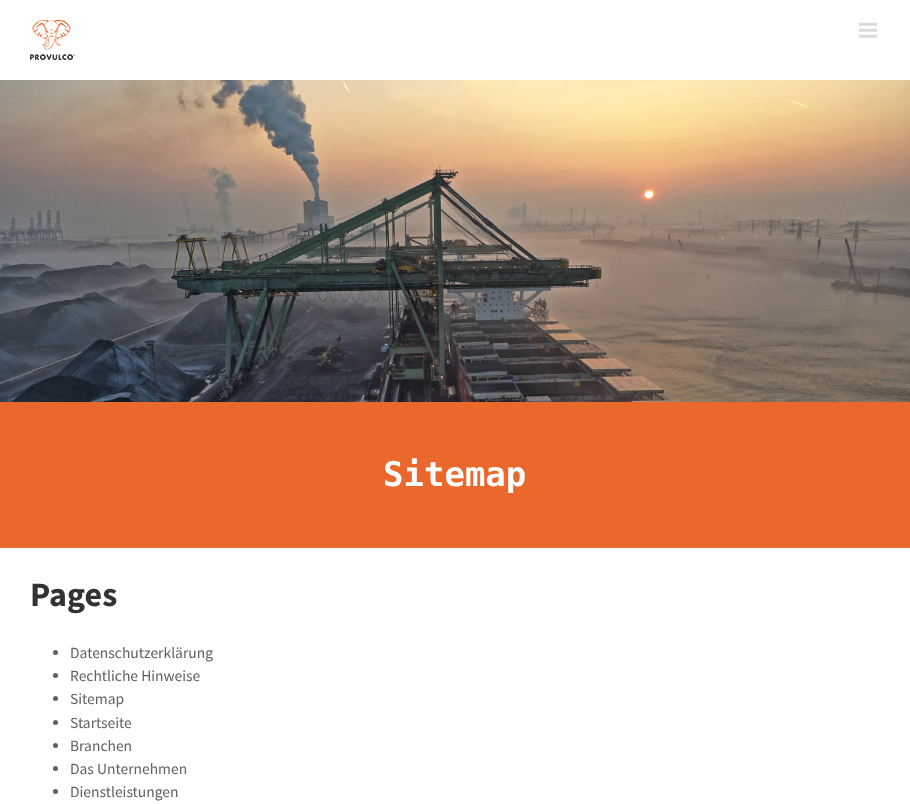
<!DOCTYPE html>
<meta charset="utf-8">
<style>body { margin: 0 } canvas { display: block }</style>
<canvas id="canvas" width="910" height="804"></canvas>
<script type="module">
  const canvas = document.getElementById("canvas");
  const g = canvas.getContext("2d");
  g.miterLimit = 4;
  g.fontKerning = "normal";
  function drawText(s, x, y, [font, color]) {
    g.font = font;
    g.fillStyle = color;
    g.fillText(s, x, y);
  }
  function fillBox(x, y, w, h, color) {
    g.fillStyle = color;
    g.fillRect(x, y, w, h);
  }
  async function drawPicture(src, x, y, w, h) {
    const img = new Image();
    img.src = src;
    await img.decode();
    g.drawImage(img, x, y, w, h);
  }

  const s1 = ["bold 34px DejaVu Sans Mono", "#FFFFFF"];
  const s2 = ["bold 34px Source Sans Pro", "#333333"];
  const s3 = ["15.5px Source Sans Pro", "#646060"];

  fillBox(0, 0, 910, 804, "#FFFFFF");
  await drawPicture("pic1.png", 30, 20, 45, 40);
  await drawPicture("pic2.png", 859, 22, 18, 16);
  await drawPicture("pic3.png", 0, 80, 910, 322);
  fillBox(0, 402, 910, 146, "#EB682C");
  drawText("Sitemap", 383, 486, s1);
  drawText("Pages", 30, 606, s2);
  g.fillStyle = "#646060";
  g.beginPath();
  g.arc(55.5, 652.5, 2.5, 0, Math.PI * 2);
  g.fill();
  drawText("Datenschutzerklärung", 70, 658, s3);
  g.beginPath();
  g.arc(55.5, 675.5, 2.5, 0, Math.PI * 2);
  g.fill();
  drawText("Rechtliche Hinweise", 70, 681, s3);
  g.beginPath();
  g.arc(55.5, 698.5, 2.5, 0, Math.PI * 2);
  g.fill();
  drawText("Sitemap", 70, 704, s3);
  g.beginPath();
  g.arc(55.5, 722.5, 2.5, 0, Math.PI * 2);
  g.fill();
  drawText("Startseite", 70, 728, s3);
  g.beginPath();
  g.arc(55.5, 745.5, 2.5, 0, Math.PI * 2);
  g.fill();
  drawText("Branchen", 70, 751, s3);
  g.beginPath();
  g.arc(55.5, 768.5, 2.5, 0, Math.PI * 2);
  g.fill();
  drawText("Das Unternehmen", 70, 774, s3);
  g.beginPath();
  g.arc(55.5, 791.5, 2.5, 0, Math.PI * 2);
  g.fill();
  drawText("Dienstleistungen", 70, 797, s3);
</script>
